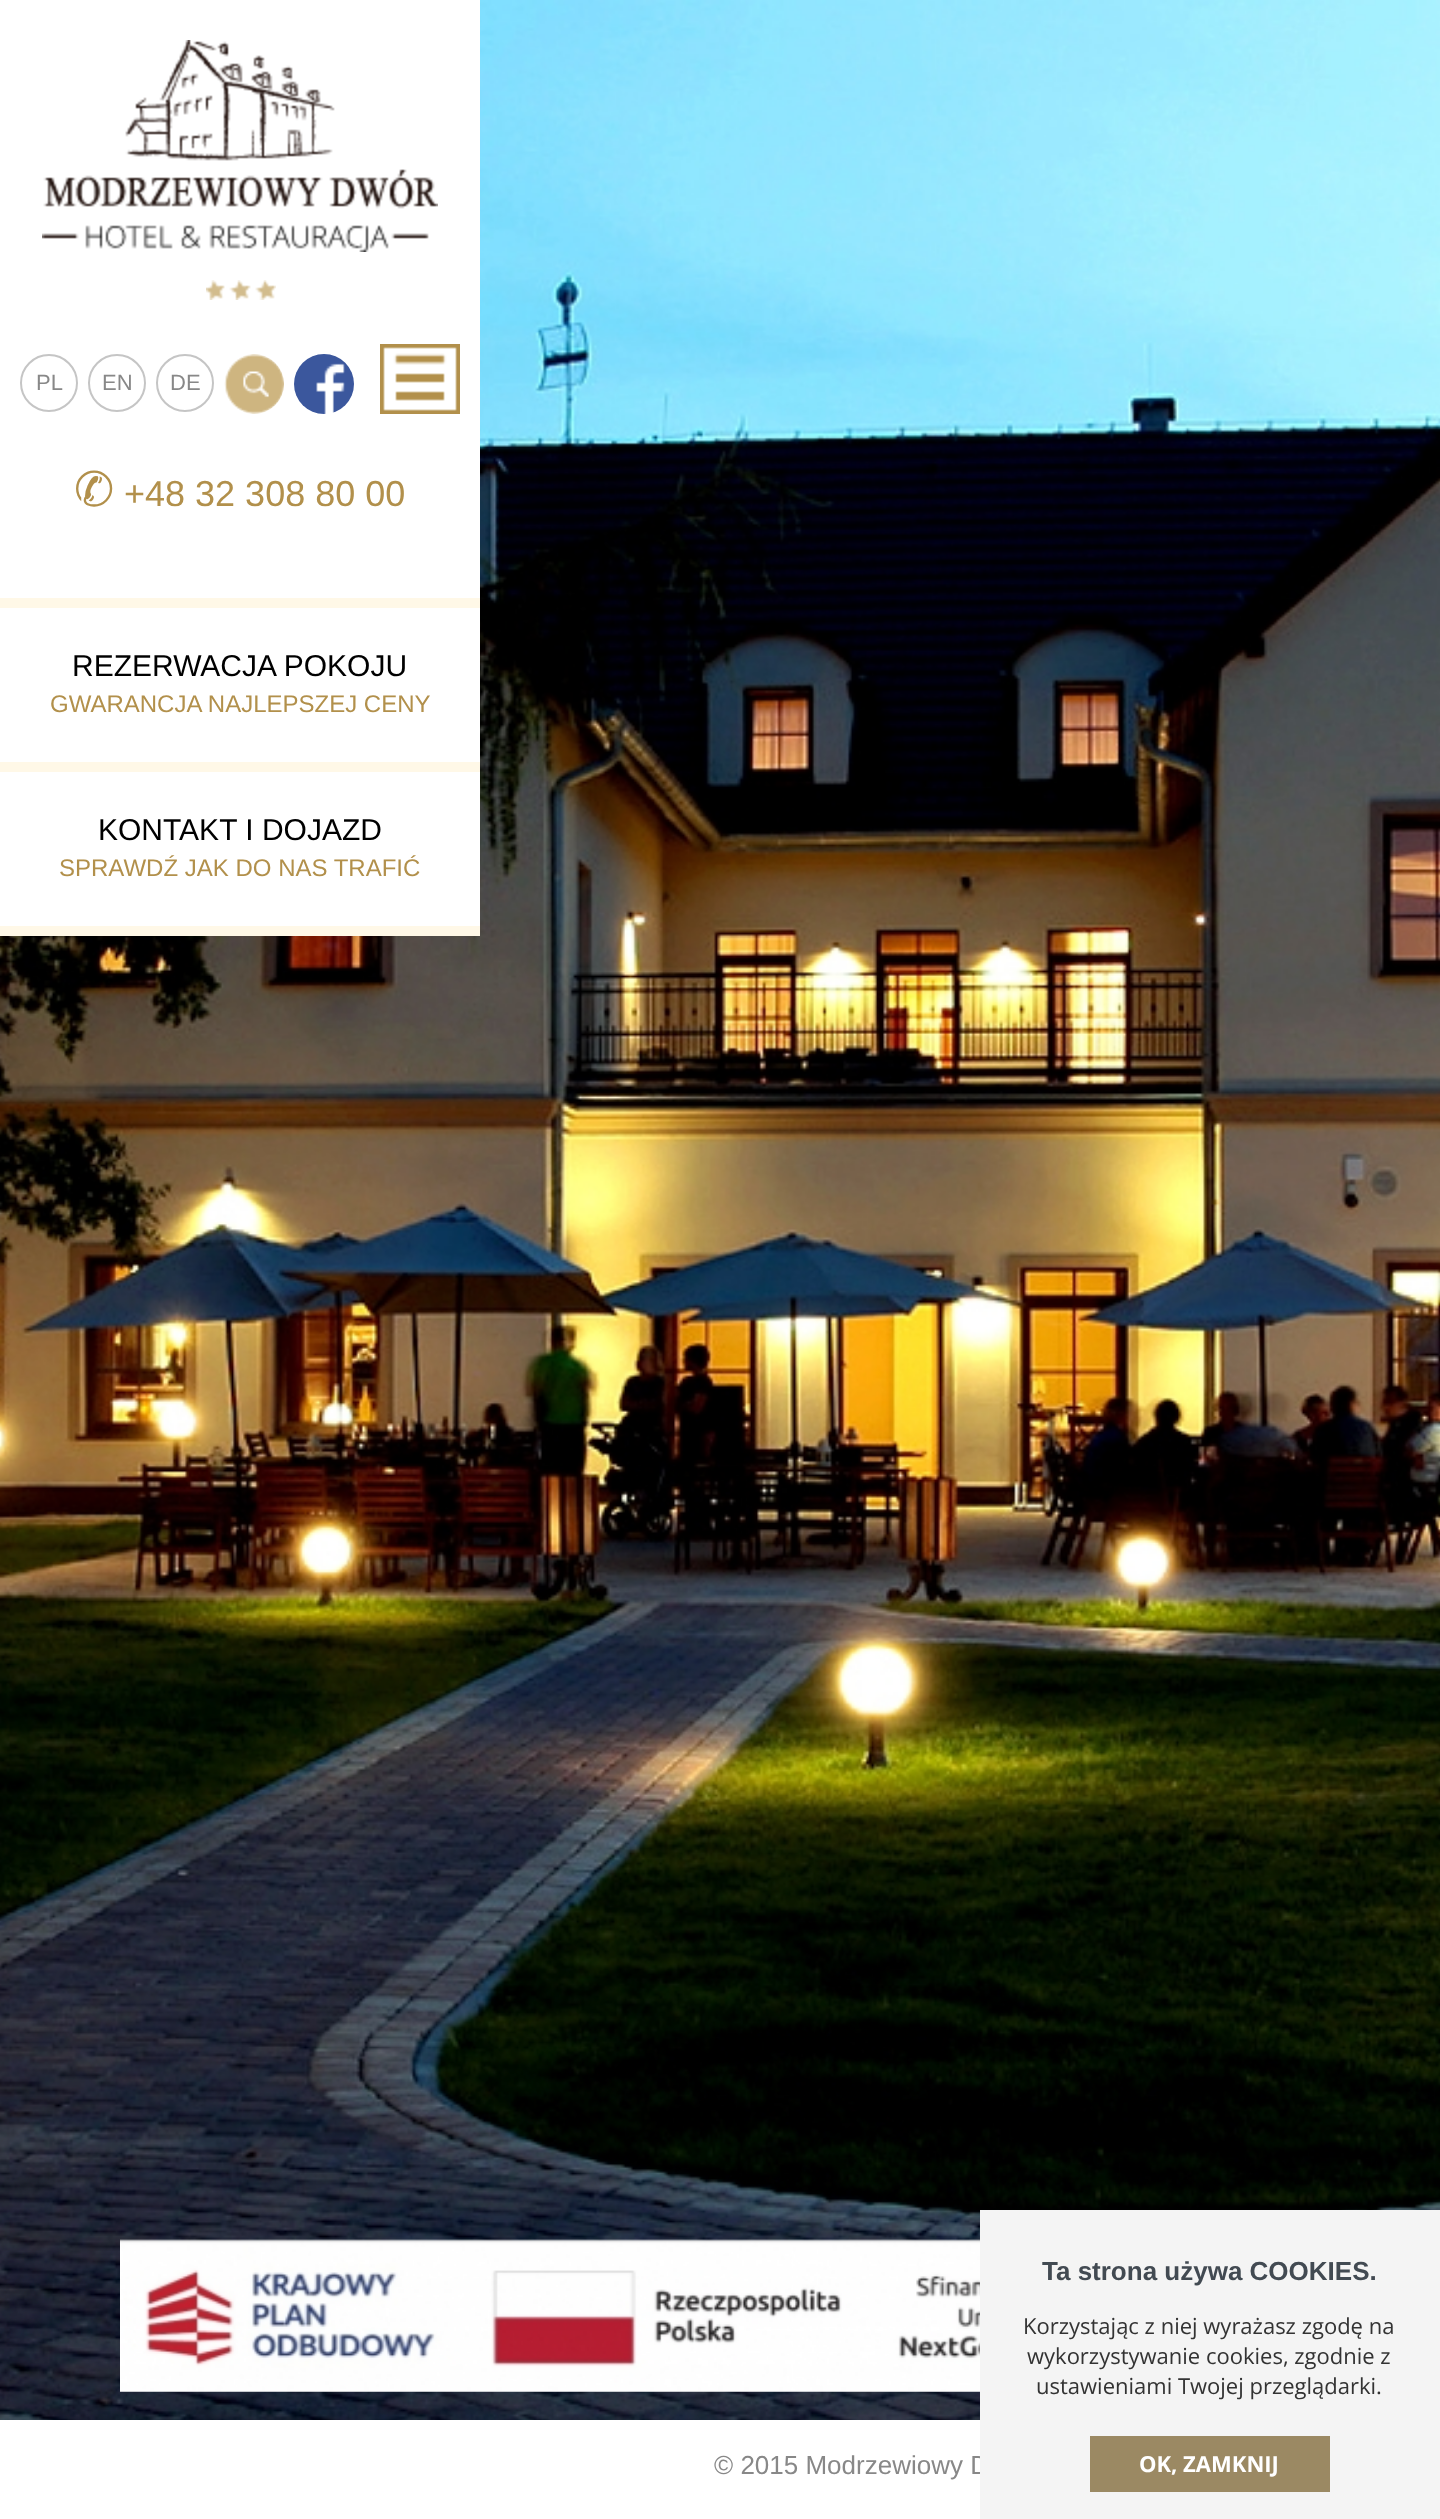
<!DOCTYPE html>
<meta charset="utf-8">
<style>body { margin: 0 } canvas { display: block }</style>
<canvas id="canvas" width="1440" height="2519"></canvas>
<script type="module">
  const canvas = document.getElementById("canvas");
  const g = canvas.getContext("2d");
  g.miterLimit = 4;
  g.fontKerning = "normal";
  function drawText(s, x, y, [font, color]) {
    g.font = font;
    g.fillStyle = color;
    g.fillText(s, x, y);
  }
  function fillBox(x, y, w, h, color) {
    g.fillStyle = color;
    g.fillRect(x, y, w, h);
  }
  async function drawPicture(src, x, y, w, h) {
    const img = new Image();
    img.src = src;
    await img.decode();
    g.drawImage(img, x, y, w, h);
  }

  const s1 = ["22px Liberation Sans", "#888888"];
  const s2 = ["48px DejaVu Sans", "#B2904B"];
  const s3 = ["36px Liberation Sans", "#B2904B"];
  const s4 = ["30px Liberation Sans", "#000000"];
  const s5 = ["24px Liberation Sans", "#B2904B"];
  const s6 = ["26px Liberation Sans", "#888888"];
  const s7 = ["bold 26px Liberation Sans", "#424A52"];
  const s8 = ["22px Open Sans", "#333333"];
  const s9 = ["bold 22px Open Sans", "#FFFFFF"];

  fillBox(0, 0, 1440, 2519, "#FFFFFF");
  await drawPicture("pic1.png", 0, 0, 1440, 2420);
  fillBox(0, 598, 480, 338, "#FFF8E7");
  fillBox(0, 0, 480, 598, "#FFFFFF");
  await drawPicture("pic2.png", 42, 40, 396, 212);
  await drawPicture("pic3.png", 206, 280, 70, 20);
  g.beginPath();
  g.arc(49, 383, 28, 0, Math.PI * 2);
  g.strokeStyle = "#C5C5C5";
  g.lineWidth = 2;
  g.stroke();
  drawText("PL", 36, 390, s1);
  g.beginPath();
  g.arc(117, 383, 28, 0, Math.PI * 2);
  g.stroke();
  drawText("EN", 102, 390, s1);
  g.beginPath();
  g.arc(185, 383, 28, 0, Math.PI * 2);
  g.stroke();
  drawText("DE", 170, 390, s1);
  await drawPicture("pic4.png", 224, 354, 60, 60);
  await drawPicture("pic5.png", 294, 354, 60, 60);
  await drawPicture("pic6.png", 380, 344, 80, 70);
  drawText("✆", 74, 506, s2);
  drawText("+48 32 308 80 00", 124, 506, s3);
  fillBox(0, 608, 480, 154, "#FFFFFF");
  drawText("REZERWACJA POKOJU", 72, 676, s4);
  drawText("GWARANCJA NAJLEPSZEJ CENY", 50, 712, s5);
  fillBox(0, 772, 480, 154, "#FFFFFF");
  drawText("KONTAKT I DOJAZD", 98, 840, s4);
  drawText("SPRAWDŹ JAK DO NAS TRAFIĆ", 59, 876, s5);
  await drawPicture("pic7.png", 120, 2239, 860, 153);
  drawText("© 2015 Modrzewiowy D", 714, 2474, s6);
  fillBox(980, 2210, 460, 309, "#F4F4F4");
  drawText("Ta strona używa COOKIES.", 1042, 2280, s7);
  drawText("Korzystając z niej wyrażasz zgodę na", 1023, 2334, s8);
  drawText("wykorzystywanie cookies, zgodnie z", 1027, 2364, s8);
  drawText("ustawieniami Twojej przeglądarki.", 1036, 2394, s8);
  fillBox(1090, 2436, 240, 56, "#9B8963");
  drawText("OK, ZAMKNIJ", 1139, 2472, s9);
</script>
